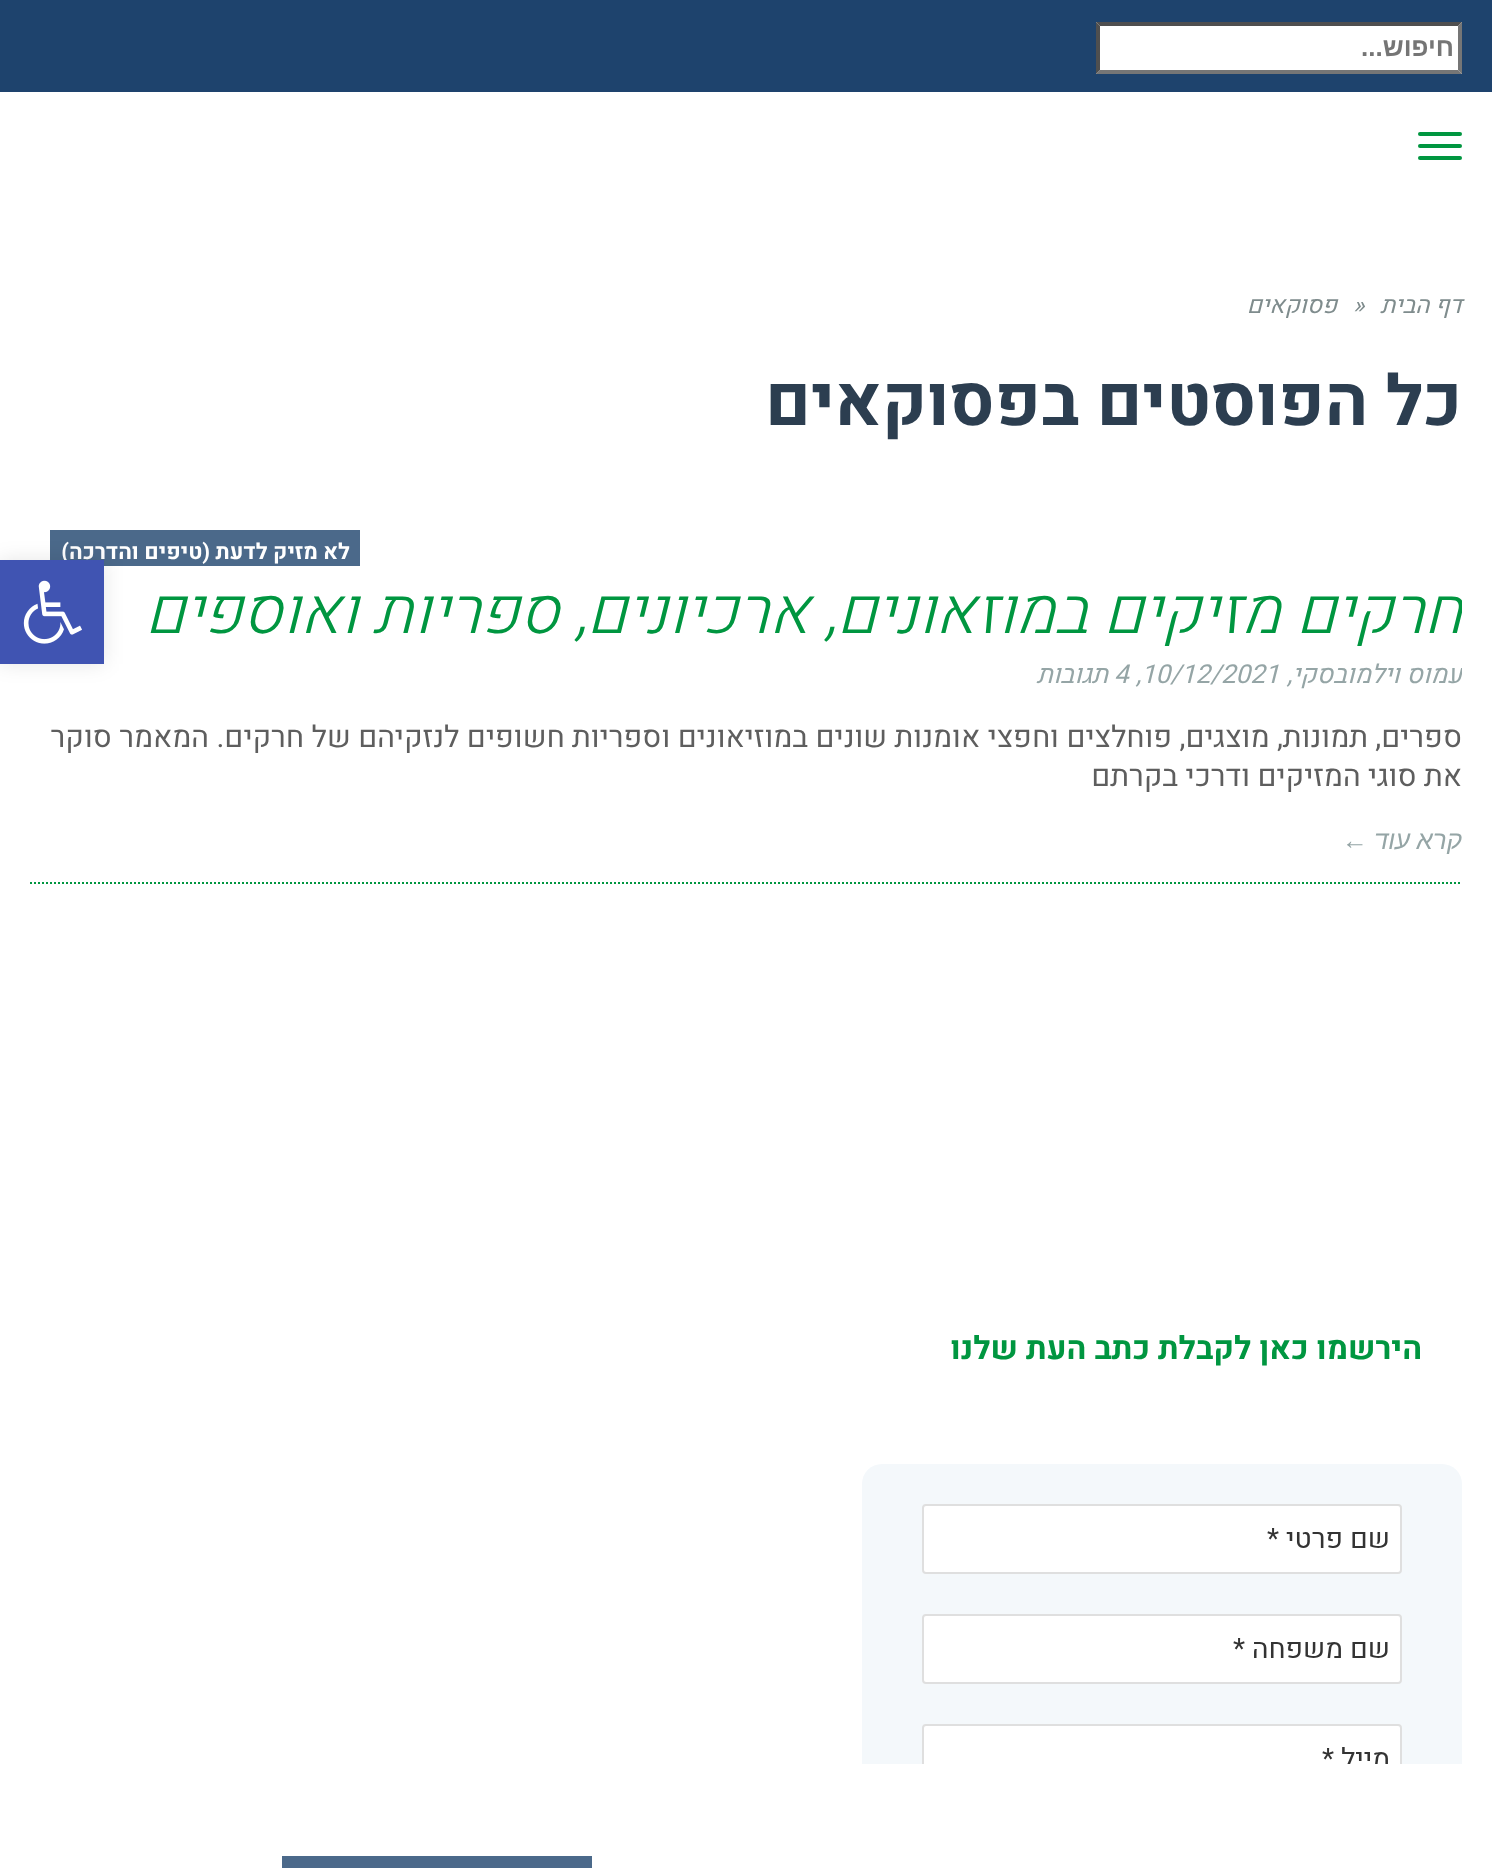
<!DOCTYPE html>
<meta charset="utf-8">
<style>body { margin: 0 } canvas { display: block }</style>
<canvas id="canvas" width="1492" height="1868"></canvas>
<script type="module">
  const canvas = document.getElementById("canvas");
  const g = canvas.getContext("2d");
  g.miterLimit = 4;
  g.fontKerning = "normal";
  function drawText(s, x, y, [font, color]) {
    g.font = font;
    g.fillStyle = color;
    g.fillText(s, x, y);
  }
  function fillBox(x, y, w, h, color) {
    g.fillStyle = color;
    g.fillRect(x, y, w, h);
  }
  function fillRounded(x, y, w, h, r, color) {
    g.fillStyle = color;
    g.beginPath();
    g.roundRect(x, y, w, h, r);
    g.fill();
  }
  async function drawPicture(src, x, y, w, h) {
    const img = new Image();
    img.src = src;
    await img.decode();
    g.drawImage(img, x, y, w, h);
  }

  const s1 = ["bold 26px Liberation Sans", "#757575"];
  const s2 = ["italic 24px Heebo", "#7F8C8D"];
  const s3 = ["bold 70px Heebo", "#2C3E50"];
  const s4 = ["bold 22px Heebo", "#FFFFFF"];
  const s5 = ["italic 300 64px Heebo", "#009640"];
  const s6 = ["italic 26px Heebo", "#95A5A6"];
  const s7 = ["30px Heebo", "#5E5E5E"];
  const s8 = ["italic 26px Liberation Sans", "#95A5A6"];
  const s9 = ["bold 32px Heebo", "#009640"];

  fillBox(0, 0, 1492, 1868, "#1E436D");
  fillBox(1096, 22, 366, 52, "#FFFFFF");
  g.fillStyle = "#4F4F4F";
  g.beginPath();
  g.moveTo(1096, 22);
  g.lineTo(1462, 22);
  g.lineTo(1458, 26);
  g.lineTo(1100, 26);
  g.closePath();
  g.fill();
  g.fillStyle = "#767676";
  g.beginPath();
  g.moveTo(1462, 22);
  g.lineTo(1462, 74);
  g.lineTo(1458, 70);
  g.lineTo(1458, 26);
  g.closePath();
  g.fill();
  g.beginPath();
  g.moveTo(1462, 74);
  g.lineTo(1096, 74);
  g.lineTo(1100, 70);
  g.lineTo(1458, 70);
  g.closePath();
  g.fill();
  g.fillStyle = "#4F4F4F";
  g.beginPath();
  g.moveTo(1096, 74);
  g.lineTo(1096, 22);
  g.lineTo(1100, 26);
  g.lineTo(1100, 70);
  g.closePath();
  g.fill();
  g.direction = "rtl";
  drawText("חיפוש...", 1454, 56, s1);
  fillBox(0, 92, 1492, 1776, "#FFFFFF");
  fillRounded(1418, 132, 44, 4, 2, "#009640");
  fillRounded(1418, 144, 44, 4, 2, "#009640");
  fillRounded(1418, 156, 44, 4, 2, "#009640");
  drawText("דף הבית", 1462, 313, s2);
  g.direction = "ltr";
  drawText("»", 1353, 313, s2);
  g.direction = "rtl";
  drawText("פסוקאים", 1337, 313, s2);
  drawText("כל הפוסטים ב", 1462, 425, s3);
  drawText("פסוקאים", 1041, 425, s3);
  fillBox(50, 530, 310, 36, "#4B698A");
  drawText("לא מזיק לדעת (טיפים והדרכה)", 350, 559, s4);
  g.beginPath();
  g.moveTo(30, 883);
  g.lineTo(1462, 883);
  g.strokeStyle = "#009640";
  g.lineWidth = 2;
  g.setLineDash([2, 2]);
  g.stroke();
  g.save();
  g.beginPath();
  g.rect(30, 510, 1432, 374);
  g.clip();
  drawText("חרקים מזיקים במוזאונים, ארכיונים, ספריות ואוספים", 1462, 633, s5);
  drawText("עמוס וילמובסקי", 1462, 683, s6);
  g.restore();
  g.direction = "ltr";
  drawText(",", 1287, 683, s6);
  drawText("10/12/2021", 1141, 683, s6);
  drawText(",", 1136, 683, s6);
  drawText("4", 1114, 683, s6);
  g.direction = "rtl";
  drawText("תגובות", 1108, 683, s6);
  drawText("ספרים, תמונות, מוצגים, פוחלצים וחפצי אומנות שונים במוזיאונים וספריות חשופים לנזקיהם של חרקים. המאמר סוקר", 1462, 747, s7);
  drawText("את סוגי המזיקים ודרכי בקרתם", 1462, 786, s7);
  g.save();
  g.beginPath();
  g.rect(30, 510, 1432, 374);
  g.clip();
  g.wordSpacing = "-1px";
  drawText("קרא עוד ←", 1462, 849, s8);
  g.restore();
  drawText("הירשמו כאן לקבלת כתב העת שלנו", 1422, 1359, s9);
  await drawPicture("pic1.png", 862, 1464, 600, 300);
  fillBox(282, 1856, 310, 12, "#4B698A");
  g.fillStyle = "rgba(0, 0, 0, 0.1)";
  g.filter = "blur(10px)";
  g.beginPath();
  g.rect(0, 560, 104, 104);
  g.fill();
  g.filter = "none";
  fillBox(0, 560, 104, 104, "#4054B2");
  await drawPicture("pic2.png", 23, 580, 59, 64);
</script>
